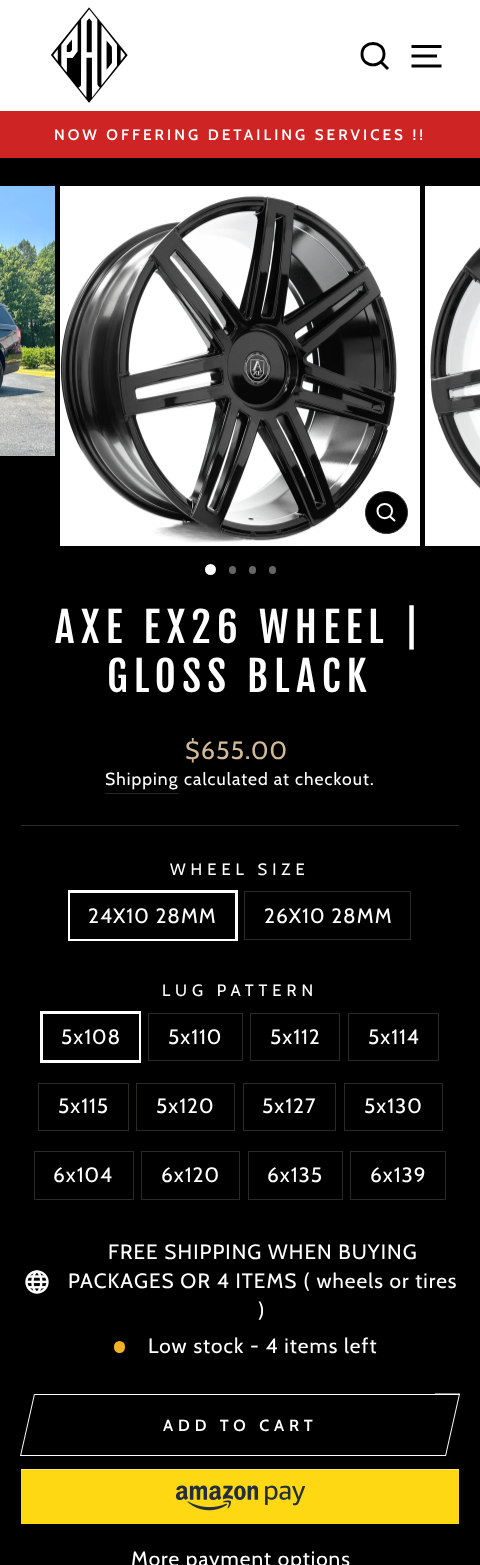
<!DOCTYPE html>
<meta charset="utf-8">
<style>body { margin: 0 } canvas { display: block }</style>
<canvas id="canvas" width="480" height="1565"></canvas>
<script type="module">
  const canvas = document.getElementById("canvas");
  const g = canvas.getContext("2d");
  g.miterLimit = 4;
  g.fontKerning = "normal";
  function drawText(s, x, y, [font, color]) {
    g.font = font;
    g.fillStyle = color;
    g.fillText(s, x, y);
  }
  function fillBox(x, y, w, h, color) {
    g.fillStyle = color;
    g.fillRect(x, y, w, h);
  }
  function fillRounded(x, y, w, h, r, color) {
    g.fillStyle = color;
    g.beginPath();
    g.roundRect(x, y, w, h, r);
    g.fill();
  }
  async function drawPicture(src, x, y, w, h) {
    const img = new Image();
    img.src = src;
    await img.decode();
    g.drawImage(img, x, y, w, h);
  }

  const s1 = ["600 15.2px Cabin", "#FFFFFF"];
  const s2 = ["41px Fjalla One", "#FFFFFF"];
  const s3 = ["25px Cabin", "#D1BA98"];
  const s4 = ["17.5px Cabin", "#FFFFFF"];
  const s5 = ["16.5px Cabin", "#FFFFFF"];
  const s6 = ["20.75px Cabin", "#FFFFFF"];
  const s7 = ["600 16.25px Cabin", "#FFFFFF"];

  fillBox(0, 0, 480, 1565, "#000000");
  fillBox(0, 0, 480, 111, "#FFFFFF");
  await drawPicture("pic1.png", 51, 7, 77, 96);
  g.beginPath();
  g.moveTo(384, 54);
  g.bezierCurveTo(384, 68.5, 362, 68.5, 362, 54);
  g.bezierCurveTo(362, 40, 384, 40, 384, 54);
  g.closePath();
  g.moveTo(388, 69);
  g.lineTo(381, 62);
  g.strokeStyle = "#000000";
  g.lineWidth = 2.9;
  g.stroke();
  g.beginPath();
  g.moveTo(411.5, 46.5);
  g.lineTo(441.5, 46.5);
  g.moveTo(411.5, 56);
  g.lineTo(437, 56);
  g.moveTo(411.5, 66);
  g.lineTo(441.5, 66);
  g.stroke();
  fillBox(0, 111, 480, 47, "#CF2424");
  g.letterSpacing = "3.05px";
  drawText("NOW OFFERING DETAILING SERVICES !!", 54, 140, s1);
  await drawPicture("pic2.png", 0, 186, 55, 270);
  await drawPicture("pic3.png", 60, 186, 360, 360);
  g.fillStyle = "#000000";
  g.beginPath();
  g.arc(386.5, 512.5, 21, 0, Math.PI * 2);
  g.fill();
  g.strokeStyle = "#2B2A27";
  g.lineWidth = 1;
  g.stroke();
  g.beginPath();
  g.moveTo(392, 511);
  g.bezierCurveTo(392, 520.5, 377.5, 520.5, 377.5, 511);
  g.bezierCurveTo(377.5, 501.5, 392, 501.5, 392, 511);
  g.closePath();
  g.moveTo(395, 521);
  g.lineTo(390, 516.5);
  g.strokeStyle = "#FFFFFF";
  g.lineWidth = 2;
  g.stroke();
  await drawPicture("pic4.png", 425, 186, 55, 360);
  g.fillStyle = "#FFFFFF";
  g.beginPath();
  g.arc(210.5, 569.5, 5.5, 0, Math.PI * 2);
  g.fill();
  fillRounded(229, 566, 7, 8, 3.5, "#666666");
  fillRounded(249, 566, 7, 8, 3.5, "#666666");
  fillRounded(269, 566, 7, 8, 3.5, "#666666");
  g.letterSpacing = "6.2px";
  drawText("AXE EX26 WHEEL |", 55, 643, s2);
  drawText("GLOSS BLACK", 107, 692, s2);
  g.letterSpacing = "1.05px";
  drawText("$655.00", 185, 759, s3);
  fillBox(105, 793, 74, 1, "#262626");
  drawText("Shipping", 105, 785, s4);
  drawText("calculated at checkout.", 184, 785, s4);
  fillBox(21, 825, 438, 1, "#2B2A27");
  g.letterSpacing = "5px";
  drawText("WHEEL SIZE", 170, 875, s5);
  g.lineWidth = 3;
  g.strokeRect(69.5, 891.5, 167, 48);
  fillBox(70, 893, 165, 46, "#000000");
  g.letterSpacing = "1.05px";
  drawText("24X10 28MM", 88, 923, s6);
  g.strokeStyle = "#2B2A27";
  g.lineWidth = 1;
  g.strokeRect(244.5, 891.5, 166, 48);
  drawText("26X10 28MM", 264, 923, s6);
  g.letterSpacing = "5px";
  drawText("LUG PATTERN", 162, 996, s5);
  g.strokeStyle = "#FFFFFF";
  g.lineWidth = 3;
  g.strokeRect(41.5, 1012.5, 98, 49);
  fillBox(138, 1014, 1, 46, "#000000");
  g.letterSpacing = "1.05px";
  drawText("5x108", 61, 1044, s6);
  g.strokeStyle = "#2B2A27";
  g.lineWidth = 1;
  g.strokeRect(148.5, 1013.5, 94, 47);
  drawText("5x110", 168, 1044, s6);
  g.strokeRect(250.5, 1013.5, 89, 47);
  drawText("5x112", 270, 1044, s6);
  g.strokeRect(348.5, 1013.5, 90, 47);
  drawText("5x114", 368, 1044, s6);
  g.strokeRect(38.5, 1083.5, 90, 47);
  drawText("5x115", 58, 1113, s6);
  g.strokeRect(136.5, 1083.5, 98, 47);
  drawText("5x120", 156, 1113, s6);
  g.strokeRect(243.5, 1083.5, 92, 47);
  drawText("5x127", 262, 1113, s6);
  g.strokeRect(344.5, 1083.5, 98, 47);
  drawText("5x130", 364, 1113, s6);
  g.strokeRect(34.5, 1151.5, 99, 48);
  drawText("6x104", 53, 1182, s6);
  g.strokeRect(141.5, 1151.5, 98, 48);
  drawText("6x120", 161, 1182, s6);
  g.strokeRect(248.5, 1151.5, 94, 48);
  drawText("6x135", 267, 1182, s6);
  g.strokeRect(350.5, 1151.5, 95, 48);
  drawText("6x139", 370, 1182, s6);
  await drawPicture("pic5.png", 25, 1270, 24, 24);
  drawText("FREE SHIPPING WHEN BUYING", 108, 1259, s6);
  drawText("PACKAGES OR 4 ITEMS ( wheels or tires", 68, 1288, s6);
  drawText(")", 258, 1317, s6);
  fillRounded(114, 1341, 11, 12, 5.5, "#F4AF29");
  drawText("Low stock - 4 items left", 148, 1353, s6);
  fillBox(35, 1394, 400, 1, "#FFFFFF");
  fillBox(45, 1455, 401, 1, "#FFFFFF");
  g.beginPath();
  g.moveTo(20.5, 1455);
  g.lineTo(45.5, 1455);
  g.lineTo(45, 1456);
  g.lineTo(20, 1456);
  g.closePath();
  g.fill();
  g.beginPath();
  g.moveTo(34, 1394);
  g.lineTo(35, 1394);
  g.lineTo(21, 1456);
  g.lineTo(20, 1456);
  g.closePath();
  g.fill();
  g.letterSpacing = "4.9px";
  drawText("ADD TO CART", 163, 1431, s7);
  g.beginPath();
  g.moveTo(435, 1393.5);
  g.lineTo(460, 1393.5);
  g.lineTo(459.5, 1395);
  g.lineTo(434.5, 1395);
  g.closePath();
  g.fill();
  g.beginPath();
  g.moveTo(459, 1394);
  g.lineTo(460, 1394);
  g.lineTo(446, 1456);
  g.lineTo(445, 1456);
  g.closePath();
  g.fill();
  fillBox(21, 1470, 438, 54, "#FFD814");
  fillBox(21, 1469, 438, 1, "#FFE872");
  await drawPicture("pic6.png", 175, 1485, 131, 26);
  g.letterSpacing = "1.05px";
  drawText("More payment options", 131, 1566, s6);
</script>
